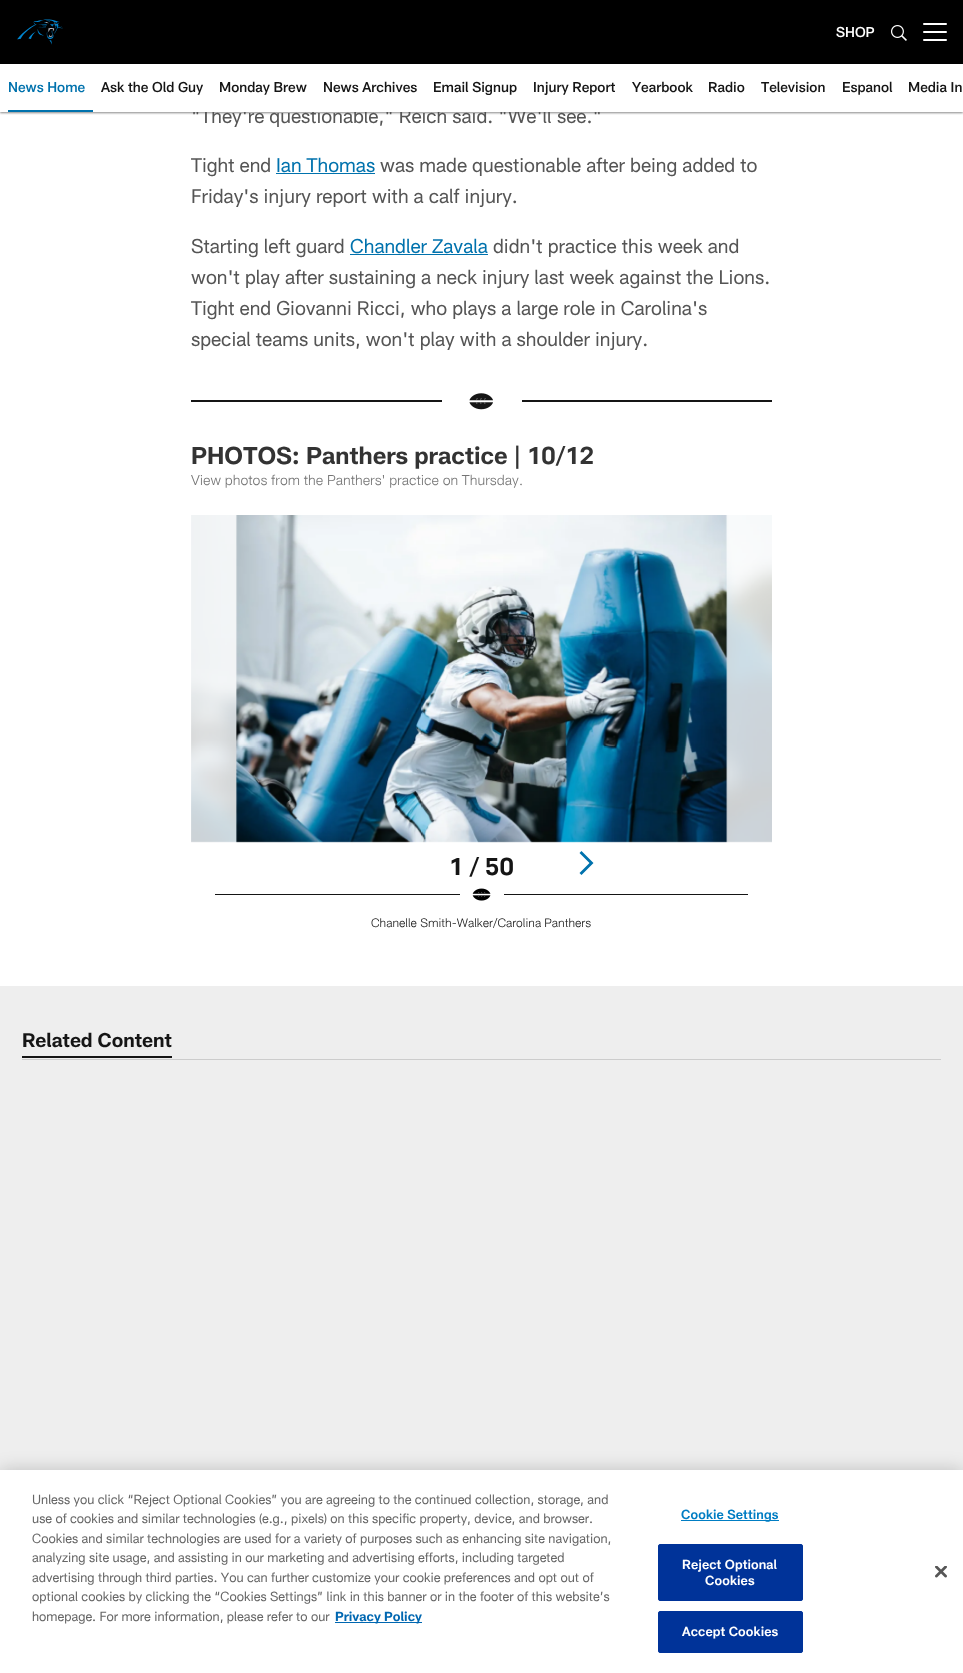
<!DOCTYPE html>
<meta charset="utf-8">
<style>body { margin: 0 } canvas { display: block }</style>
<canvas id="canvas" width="963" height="1673"></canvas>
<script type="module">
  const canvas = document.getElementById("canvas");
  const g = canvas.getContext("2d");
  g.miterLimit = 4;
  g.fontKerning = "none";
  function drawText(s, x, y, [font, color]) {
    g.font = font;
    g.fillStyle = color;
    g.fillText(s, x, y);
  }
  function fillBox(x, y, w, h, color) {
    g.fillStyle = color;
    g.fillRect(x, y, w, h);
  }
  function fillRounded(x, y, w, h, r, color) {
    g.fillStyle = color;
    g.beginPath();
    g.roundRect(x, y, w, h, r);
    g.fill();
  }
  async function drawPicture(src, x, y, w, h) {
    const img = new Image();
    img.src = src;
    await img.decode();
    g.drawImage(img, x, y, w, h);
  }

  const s1 = ["500 14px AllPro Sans", "#FFFFFF"];
  const s2 = ["19.5px AllPro Sans", "#555555"];
  const s3 = ["500 14px AllPro Sans", "#0072AD"];
  const s4 = ["500 14px AllPro Sans", "#151515"];
  const s5 = ["19.5px AllPro Sans", "#0072AD"];
  const s6 = ["bold 24px AllPro Sans", "#333333"];
  const s7 = ["300 14px AllPro Sans", "#757575"];
  const s8 = ["bold 24px AllPro Sans", "#151515"];
  const s9 = ["300 12px AllPro Sans", "#151515"];
  const s10 = ["bold 19.5px AllPro Sans", "#151515"];
  const s11 = ["13px AllPro Sans", "#666666"];
  const s12 = ["bold 13px AllPro Sans", "#0067B1"];
  const s13 = ["600 13px AllPro Sans", "#007DC3"];
  const s14 = ["600 13px AllPro Sans", "#FFFFFF"];

  fillBox(0, 0, 963, 1673, "#EEEEEE");
  fillBox(0, 0, 963, 64, "#000000");
  await drawPicture("pic1.png", 17, 19, 46, 26);
  drawText("SHOP", 836, 37, s1);
  await drawPicture("pic2.png", 891, 25, 16, 16);
  fillRounded(923, 31, 24, 2, 1, "#FFFFFF");
  fillRounded(923, 23, 24, 2, 1, "#FFFFFF");
  fillRounded(923, 39, 24, 2, 1, "#FFFFFF");
  fillBox(0, 112, 963, 874, "#FFFFFF");
  g.fillStyle = "rgba(0, 0, 0, 0.47)";
  g.filter = "blur(1px)";
  g.beginPath();
  g.rect(0, 65, 963, 48);
  g.fill();
  g.filter = "none";
  drawText("\"They're questionable,\" Reich said. \"We'll", 191, 123, s2);
  drawText("see.\"", 557, 123, s2);
  fillBox(0, 64, 963, 48, "#FFFFFF");
  fillBox(8, 110, 85, 2, "#0072AD");
  drawText("News Home", 8, 92, s3);
  drawText("Ask the Old Guy", 101, 92, s4);
  drawText("Monday Brew", 219, 92, s4);
  drawText("News Archives", 323, 92, s4);
  drawText("Email Signup", 433, 92, s4);
  drawText("Injury Report", 533, 92, s4);
  drawText("Yearbook", 632, 92, s4);
  drawText("Radio", 708, 92, s4);
  drawText("Television", 761, 92, s4);
  drawText("Espanol", 842, 92, s4);
  drawText("Media In", 908, 92, s4);
  drawText("Tight end", 191, 172, s2);
  drawText("Ian Thomas", 276, 172, s5);
  fillBox(276, 173, 99, 1, "#0072AD");
  drawText("was made questionable after being added to", 380, 172, s2);
  drawText("Friday's injury report with a calf injury.", 191, 203, s2);
  drawText("Starting left guard", 191, 253, s2);
  drawText("Chandler Zavala", 350, 253, s5);
  fillBox(350, 254, 138, 1, "#0072AD");
  drawText("didn't practice this week and", 493, 253, s2);
  drawText("won't play after sustaining a neck injury last week against the Lions.", 191, 284, s2);
  drawText("Tight end Giovanni Ricci, who plays a large role in Carolina's", 191, 315, s2);
  drawText("special teams units, won't play with a shoulder injury.", 191, 346, s2);
  fillBox(191, 400, 251, 2, "#151515");
  await drawPicture("pic3.png", 469, 393, 24, 17);
  fillBox(522, 400, 250, 2, "#151515");
  drawText("PHOTOS: Panthers practice | 10/12", 191, 464, s6);
  drawText("View photos from the Panthers' practice on Thursday.", 191, 485, s7);
  g.fillStyle = "#0072AD";
  g.beginPath();
  g.moveTo(589.5, 863);
  g.lineTo(579.5, 853);
  g.lineTo(581.5, 851);
  g.lineTo(593.5, 863);
  g.lineTo(581.5, 875);
  g.lineTo(579.5, 873);
  g.lineTo(580.5, 872);
  g.closePath();
  g.fill();
  await drawPicture("pic4.png", 191, 515, 581, 328);
  drawText("1 / 50", 449, 875, s8);
  fillBox(215, 894, 245, 1, "#151515");
  await drawPicture("pic5.png", 472, 888, 19, 13);
  fillBox(504, 894, 244, 1, "#151515");
  drawText("Chanelle Smith-Walker/Carolina Panthers", 371, 927, s9);
  fillBox(22, 1059, 919, 1, "#CCCCCC");
  fillBox(22, 1056, 150, 2, "#151515");
  drawText("Related Content", 22, 1047, s10);
  g.fillStyle = "rgba(0, 0, 0, 0.2)";
  g.filter = "blur(9px)";
  g.beginPath();
  g.rect(0, 1470, 963, 203);
  g.fill();
  g.filter = "none";
  fillBox(0, 1470, 963, 203, "#FFFFFF");
  drawText("Unless you click “Reject Optional Cookies” you are agreeing to the continued collection, storage, and", 32, 1504, s11);
  drawText("use of cookies and similar technologies (e.g., pixels) on this specific property, device, and browser.", 32, 1523, s11);
  drawText("Cookies and similar technologies are used for a variety of purposes such as enhancing site navigation,", 32, 1543, s11);
  drawText("analyzing site usage, and assisting in our marketing and advertising efforts, including targeted", 32, 1562, s11);
  drawText("advertising through third parties. You can further customize your cookie preferences and opt out of", 32, 1582, s11);
  drawText("optional cookies by clicking the “Cookies Settings” link in this banner or in the footer of this website’s", 32, 1601, s11);
  drawText("homepage. For more information, please refer to our", 32, 1621, s11);
  fillBox(335, 1622, 87, 1, "#0067B1");
  drawText("Privacy Policy", 335, 1621, s12);
  fillBox(681, 1520, 98, 1, "#007DC3");
  g.letterSpacing = "0.1px";
  drawText("Cookie Settings", 681, 1519, s13);
  g.fillStyle = "#003399";
  g.beginPath();
  g.roundRect(658.5, 1544.5, 144, 56, 1.5);
  g.fill();
  g.strokeStyle = "#003399";
  g.stroke();
  drawText("Reject Optional", 682, 1569, s14);
  drawText("Cookies", 705, 1585, s14);
  g.fillStyle = "#003399";
  g.beginPath();
  g.roundRect(658.5, 1611.5, 144, 41, 1.5);
  g.fill();
  g.stroke();
  drawText("Accept Cookies", 682, 1636, s14);
  await drawPicture("pic6.png", 935, 1566, 12, 12);
</script>
